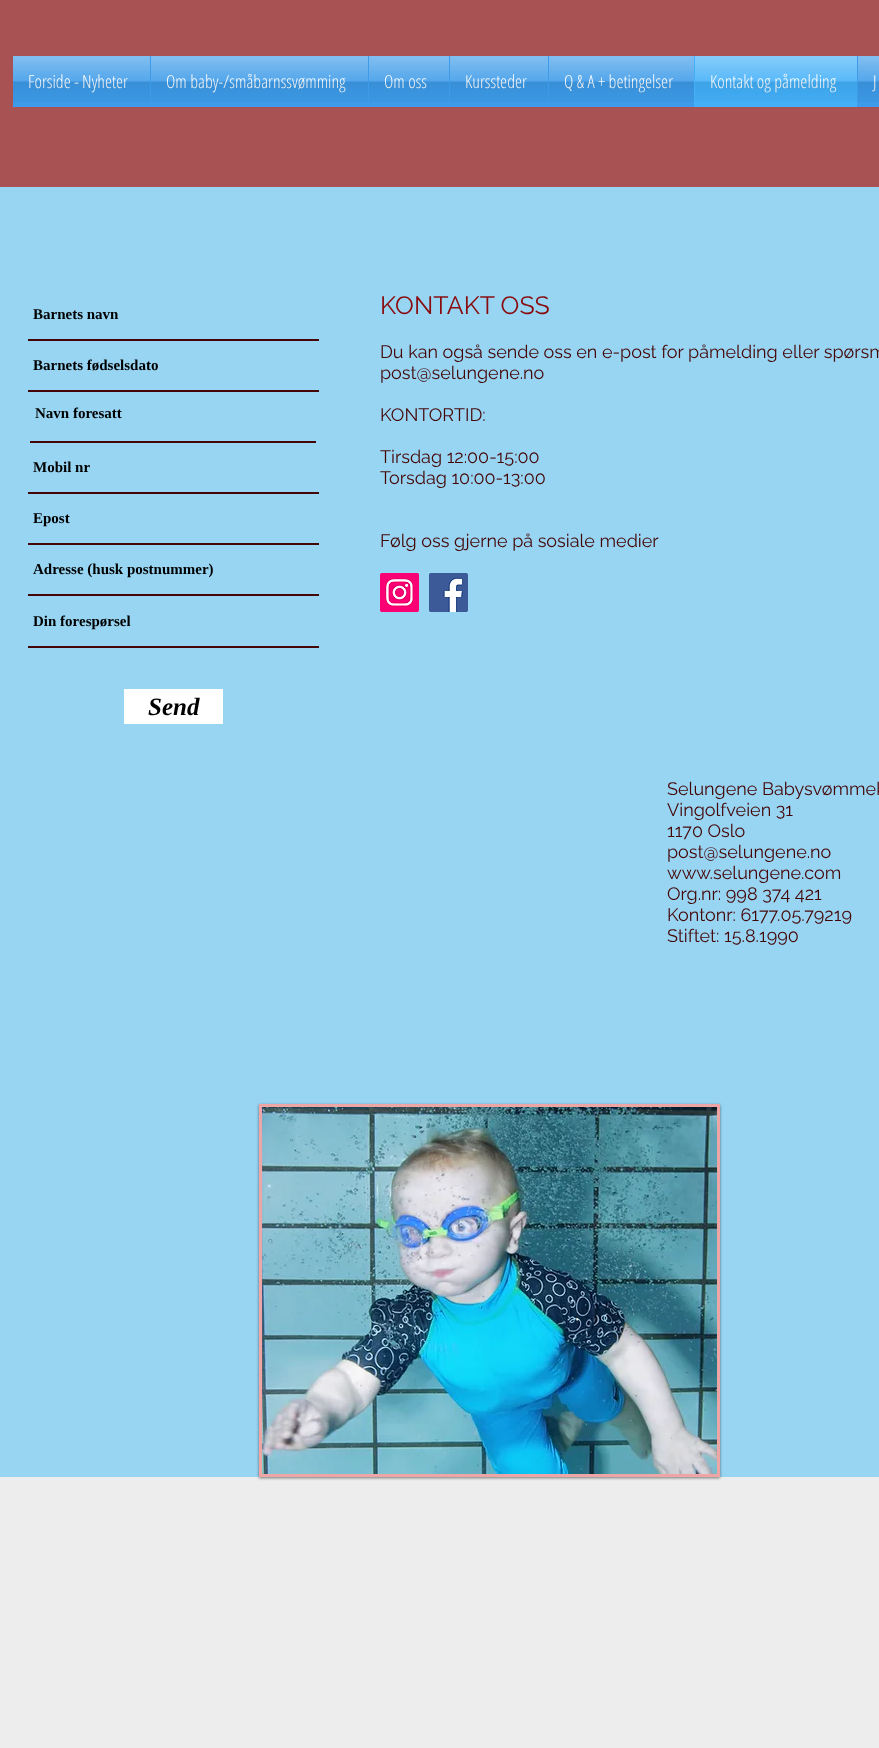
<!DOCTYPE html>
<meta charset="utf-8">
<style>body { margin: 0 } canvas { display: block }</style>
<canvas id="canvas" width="879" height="1748"></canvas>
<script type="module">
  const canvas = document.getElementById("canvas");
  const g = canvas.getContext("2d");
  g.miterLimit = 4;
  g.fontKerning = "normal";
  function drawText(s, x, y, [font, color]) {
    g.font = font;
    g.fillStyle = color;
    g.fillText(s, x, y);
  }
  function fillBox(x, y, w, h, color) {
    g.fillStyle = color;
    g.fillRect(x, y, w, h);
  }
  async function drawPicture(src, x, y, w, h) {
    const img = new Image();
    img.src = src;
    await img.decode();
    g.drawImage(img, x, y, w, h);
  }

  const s1 = ["300 18px Open Sans Condensed", "#FFFFFF"];
  const s2 = ["bold 15px Liberation Serif", "#000000"];
  const s3 = ["italic bold 25px Liberation Serif", "#000000"];
  const s4 = ["25px Raleway", "#880A0C"];
  const s5 = ["18px Raleway", "#440506"];

  fillBox(0, 0, 879, 1748, "#EDEDED");
  fillBox(0, 0, 879, 187, "#A85254");
  fillBox(13, 56, 681, 51, "#3D9BE9");
  drawText("Forside - Nyheter", 28, 88, s1);
  await drawPicture("pic1.png", 13, 56, 137, 46);
  drawText("Om baby-/småbarnssvømming", 166, 88, s1);
  await drawPicture("pic2.png", 151, 56, 217, 46);
  drawText("Om oss", 384, 88, s1);
  await drawPicture("pic3.png", 369, 56, 80, 46);
  drawText("Kurssteder", 465, 88, s1);
  await drawPicture("pic4.png", 450, 56, 98, 46);
  drawText("Q & A + betingelser", 564, 88, s1);
  await drawPicture("pic5.png", 549, 56, 145, 46);
  fillBox(694, 56, 163, 51, "#43B0F9");
  drawText("Kontakt og påmelding", 710, 88, s1);
  await drawPicture("pic6.png", 695, 56, 162, 46);
  fillBox(857, 56, 22, 51, "#3D9BE9");
  drawText("J", 873, 88, s1);
  await drawPicture("pic7.png", 858, 56, 21, 46);
  fillBox(0, 187, 879, 1290, "#98D5F3");
  fillBox(28, 339, 291, 2, "#440506");
  drawText("Barnets navn", 33, 319, s2);
  fillBox(28, 390, 291, 2, "#440506");
  drawText("Barnets fødselsdato", 33, 370, s2);
  fillBox(30, 441, 286, 2, "#440506");
  drawText("Navn foresatt", 35, 418, s2);
  fillBox(28, 492, 291, 2, "#440506");
  drawText("Mobil nr", 33, 472, s2);
  fillBox(28, 543, 291, 2, "#440506");
  drawText("Epost", 33, 523, s2);
  fillBox(28, 594, 291, 2, "#440506");
  drawText("Adresse (husk postnummer)", 33, 574, s2);
  fillBox(28, 646, 291, 2, "#440506");
  drawText("Din forespørsel", 33, 626, s2);
  fillBox(124, 689, 99, 35, "#FFFFFF");
  drawText("Send", 148, 715, s3);
  drawText("KONTAKT OSS", 380, 314, s4);
  drawText("Du kan også sende oss en e-post for påmelding eller spørsm", 380, 358, s5);
  drawText("post@selungene.no", 380, 379, s5);
  drawText("KONTORTID:", 380, 421, s5);
  drawText("Tirsdag 12:00-15:00", 380, 463, s5);
  drawText("Torsdag 10:00-13:00", 380, 484, s5);
  drawText("Følg oss gjerne på sosiale medier", 380, 547, s5);
  await drawPicture("pic8.png", 380, 573, 39, 39);
  await drawPicture("pic9.png", 429, 573, 39, 39);
  drawText("Selungene Babysvømmek", 667, 795, s5);
  drawText("Vingolfveien 31", 667, 816, s5);
  drawText("1170 Oslo", 667, 837, s5);
  drawText("post@selungene.no", 667, 858, s5);
  drawText("www.selungene.com", 667, 879, s5);
  drawText("Org.nr: 998 374 421", 667, 900, s5);
  drawText("Kontonr: 6177.05.79219", 667, 921, s5);
  drawText("Stiftet: 15.8.1990", 667, 942, s5);
  g.fillStyle = "rgba(0, 0, 0, 0.5)";
  g.filter = "blur(1.5px)";
  g.beginPath();
  g.rect(259, 1105, 461, 373);
  g.fill();
  g.filter = "none";
  fillBox(259, 1104, 461, 373, "#EDA5A6");
  await drawPicture("pic10.png", 262, 1107, 455, 367);
</script>
